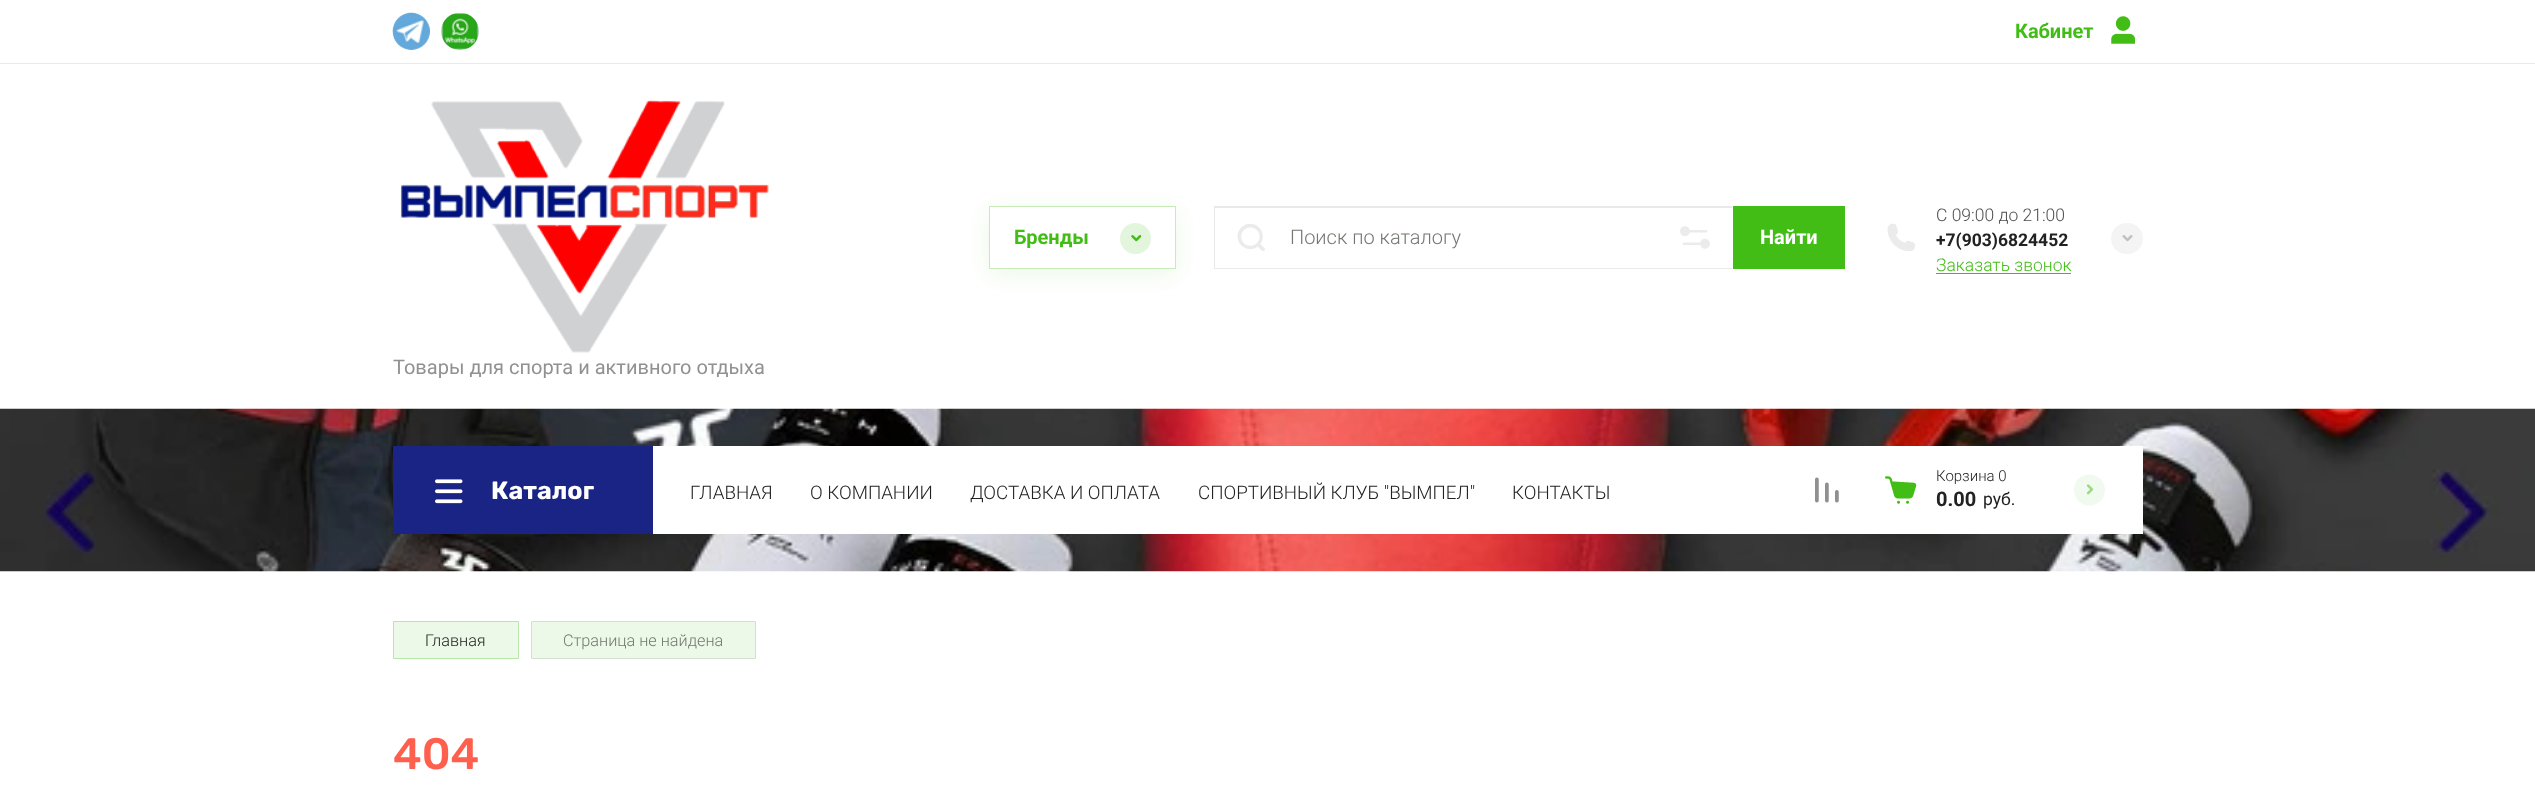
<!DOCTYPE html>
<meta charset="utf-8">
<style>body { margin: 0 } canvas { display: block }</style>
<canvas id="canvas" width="2535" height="801"></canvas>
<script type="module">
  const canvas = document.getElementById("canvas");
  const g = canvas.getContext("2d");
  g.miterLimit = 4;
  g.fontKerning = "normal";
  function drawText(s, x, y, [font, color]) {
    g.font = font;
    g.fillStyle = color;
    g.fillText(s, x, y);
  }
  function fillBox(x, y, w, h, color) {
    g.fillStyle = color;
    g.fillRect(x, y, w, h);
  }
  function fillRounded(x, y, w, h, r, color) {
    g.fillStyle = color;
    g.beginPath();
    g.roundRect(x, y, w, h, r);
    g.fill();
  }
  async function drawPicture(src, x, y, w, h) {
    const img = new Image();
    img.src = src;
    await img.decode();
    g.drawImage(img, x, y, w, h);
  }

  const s1 = ["bold 20px Roboto", "#42BD16"];
  const s2 = ["300 20px Roboto", "#737871"];
  const s3 = ["bold 20px Roboto", "#FFFFFF"];
  const s4 = ["300 17.5px Roboto", "#4E4E4E"];
  const s5 = ["bold 17.5px Roboto", "#222222"];
  const s6 = ["300 17.5px Roboto", "#42BD16"];
  const s7 = ["20px Roboto", "#919191"];
  const s8 = ["bold 25px Rubik", "#FFFFFF"];
  const s9 = ["300 18.75px Roboto", "#222222"];
  const s10 = ["300 15px Roboto", "#222222"];
  const s11 = ["bold 20px Roboto", "#222222"];
  const s12 = ["17.5px Roboto", "#222222"];
  const s13 = ["300 16.25px Roboto", "#222222"];
  const s14 = ["300 16.25px Roboto", "#737871"];
  const s15 = ["500 44px Rubik", "#FF604E"];

  fillBox(0, 0, 2535, 801, "#FFFFFF");
  fillBox(0, 63, 2535, 1, "#E9E9E9");
  g.fillStyle = "#D1D3E6";
  g.beginPath();
  g.arc(411.5, 31.5, 18.5, 0, Math.PI * 2);
  g.fill();
  await drawPicture("pic1.png", 392, 12, 38, 38);
  fillRounded(441, 13, 38, 37, 18.5, "#D1D3E6");
  await drawPicture("pic2.png", 441, 12, 38, 38);
  drawText("Кабинет", 2015, 38, s1);
  await drawPicture("pic3.png", 2111, 16, 24, 28);
  g.fillStyle = "#E9E9E9";
  g.beginPath();
  g.moveTo(1214, 206);
  g.lineTo(1732, 206);
  g.lineTo(1732, 208);
  g.lineTo(1215, 208);
  g.closePath();
  g.fill();
  g.beginPath();
  g.moveTo(1732, 269);
  g.lineTo(1214, 269);
  g.lineTo(1215, 268);
  g.lineTo(1732, 268);
  g.closePath();
  g.fill();
  g.fillStyle = "rgba(34, 34, 34, 0.1)";
  g.beginPath();
  g.moveTo(1214, 269);
  g.lineTo(1214, 206);
  g.lineTo(1215, 208);
  g.lineTo(1215, 268);
  g.closePath();
  g.fill();
  g.save();
  g.beginPath();
  g.moveTo(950, 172);
  g.lineTo(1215, 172);
  g.lineTo(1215, 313);
  g.lineTo(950, 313);
  g.closePath();
  g.moveTo(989, 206);
  g.lineTo(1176, 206);
  g.lineTo(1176, 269);
  g.lineTo(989, 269);
  g.closePath();
  g.clip("evenodd");
  g.fillStyle = "rgba(66, 189, 22, 0.1)";
  g.filter = "blur(12.5px)";
  g.beginPath();
  g.rect(989, 211, 187, 63);
  g.fill();
  g.filter = "none";
  g.restore();
  g.strokeStyle = "rgba(66, 189, 22, 0.3)";
  g.strokeRect(989.5, 206.5, 186, 62);
  drawText("Бренды", 1014, 244, s1);
  g.fillStyle = "#E3F5DC";
  g.beginPath();
  g.arc(1135.5, 238.5, 15.5, 0, Math.PI * 2);
  g.fill();
  await drawPicture("pic4.png", 1131, 235, 11, 7);
  await drawPicture("pic5.png", 1680, 226, 30, 23);
  await drawPicture("pic6.png", 1237, 224, 28, 27);
  drawText("Поиск по каталогу", 1290, 244, s2);
  fillBox(1733, 206, 112, 63, "#42BD16");
  drawText("Найти", 1760, 244, s3);
  await drawPicture("pic7.png", 1887, 223, 28, 28);
  drawText("C 09:00 до 21:00", 1936, 221, s4);
  drawText("+7(903)6824452", 1936, 246, s5);
  drawText("Заказать звонок", 1936, 271, s6);
  fillBox(1936, 273, 135, 1, "#42BD16");
  fillRounded(2111, 223, 32, 31, 15.5, "#F4F4F4");
  await drawPicture("pic8.png", 2122, 235, 11, 7);
  await drawPicture("pic9.png", 400, 100, 369, 253);
  drawText("Товары для спорта и активного отдыха", 393, 374, s7);
  await drawPicture("pic10.png", 0, 408, 2535, 164);
  fillBox(653, 446, 1490, 88, "#FFFFFF");
  fillBox(393, 446, 260, 88, "#1A2484");
  await drawPicture("pic11.png", 435, 479, 28, 25);
  drawText("Каталог", 491, 499, s8);
  drawText("ГЛАВНАЯ", 690, 499, s9);
  drawText("О КОМПАНИИ", 810, 499, s9);
  drawText("ДОСТАВКА И ОПЛАТА", 970, 499, s9);
  drawText("СПОРТИВНЫЙ КЛУБ \"ВЫМПЕЛ\"", 1198, 499, s9);
  drawText("КОНТАКТЫ", 1512, 499, s9);
  await drawPicture("pic12.png", 1815, 477, 24, 26);
  await drawPicture("pic13.png", 1885, 476, 32, 28);
  drawText("Корзина 0", 1936, 481, s10);
  g.fillStyle = "#F1FAEE";
  g.beginPath();
  g.moveTo(2074, 490);
  g.bezierCurveTo(2074, 481.5, 2080.5, 474.5, 2089.5, 474.5);
  g.bezierCurveTo(2098, 474.5, 2105, 481.5, 2105, 490);
  g.bezierCurveTo(2105, 498.5, 2098, 505.5, 2089.5, 505.5);
  g.bezierCurveTo(2080.5, 505.5, 2074, 498.5, 2074, 490);
  g.closePath();
  g.fill();
  await drawPicture("pic14.png", 2086, 484, 8, 11);
  drawText("0.00", 1936, 506, s11);
  drawText("руб.", 1983, 505, s12);
  g.fillStyle = "#ECF8E8";
  g.beginPath();
  g.rect(393.5, 621.5, 125, 37);
  g.fill();
  g.strokeStyle = "#B9E6A9";
  g.stroke();
  drawText("Главная", 425, 646, s13);
  g.fillStyle = "#ECF8E8";
  g.beginPath();
  g.rect(531.5, 621.5, 224, 37);
  g.fill();
  g.strokeStyle = "#D4DFD1";
  g.stroke();
  drawText("Страница не найдена", 563, 646, s14);
  drawText("404", 393, 769, s15);
</script>
